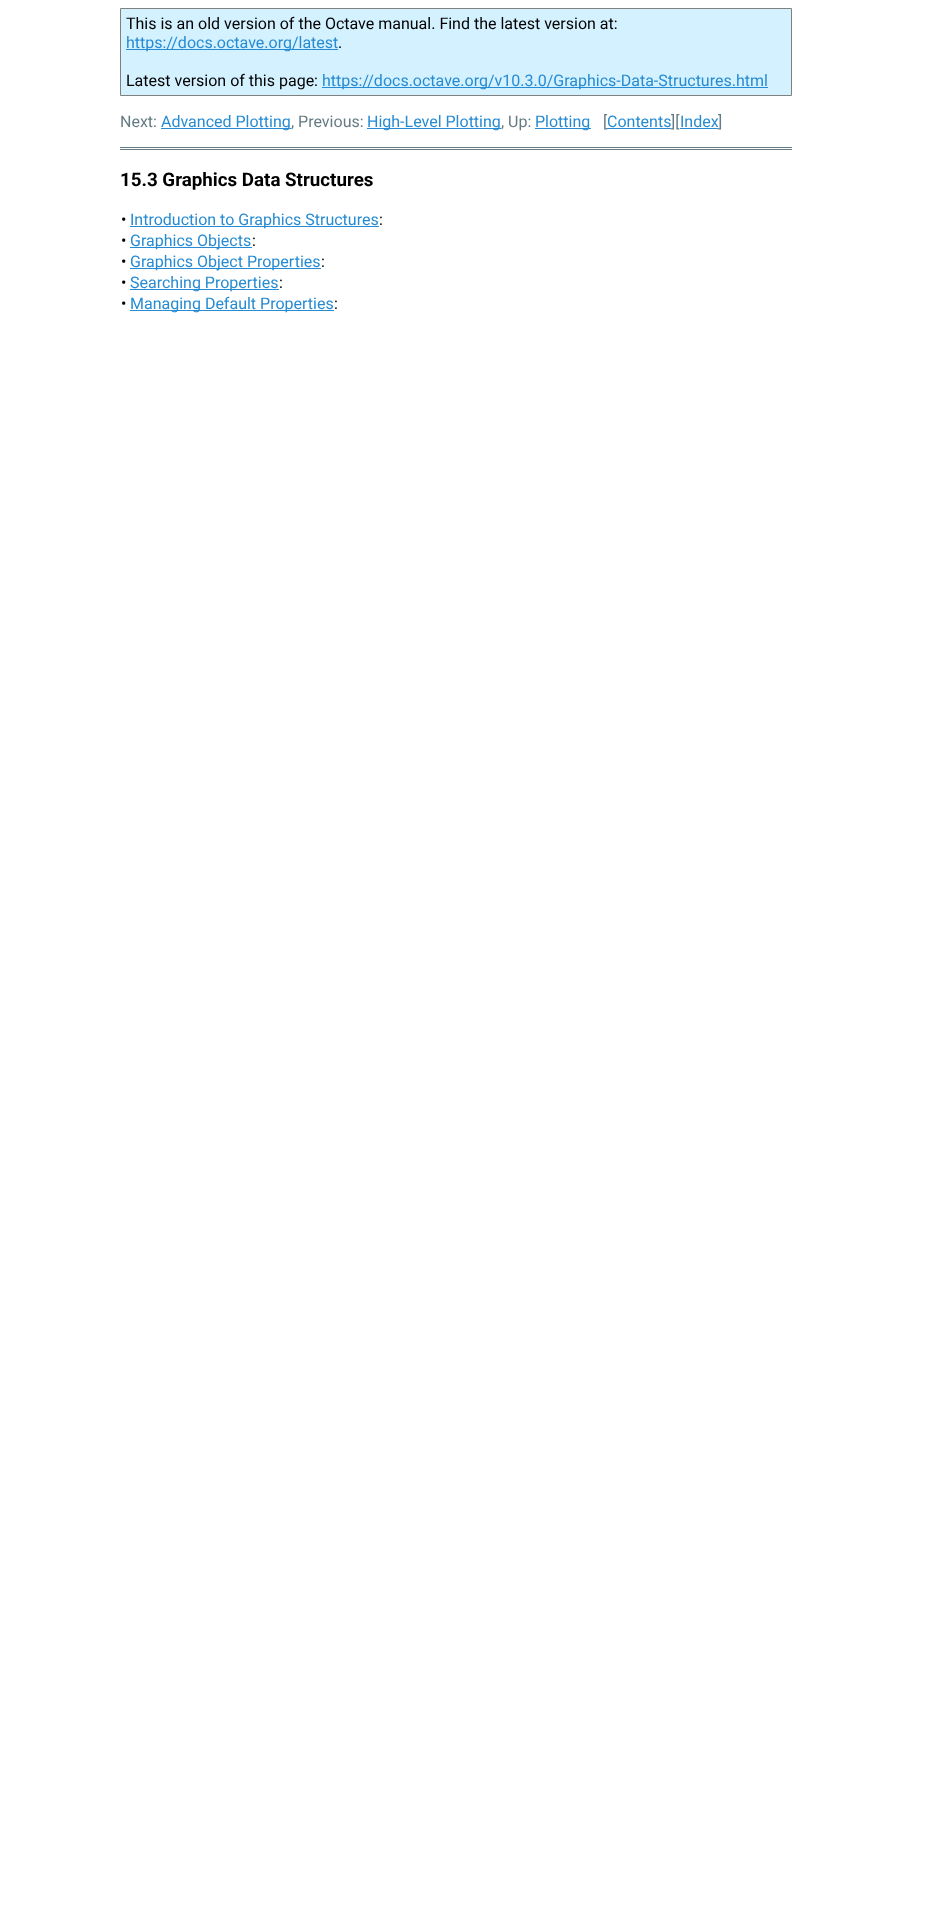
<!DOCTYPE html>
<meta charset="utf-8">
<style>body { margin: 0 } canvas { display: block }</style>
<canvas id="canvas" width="944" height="1911"></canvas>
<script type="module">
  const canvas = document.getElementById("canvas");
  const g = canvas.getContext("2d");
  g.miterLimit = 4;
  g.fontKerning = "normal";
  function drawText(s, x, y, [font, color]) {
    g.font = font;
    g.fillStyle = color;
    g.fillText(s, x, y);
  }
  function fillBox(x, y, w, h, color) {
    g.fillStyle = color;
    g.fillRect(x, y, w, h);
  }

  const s1 = ["16px Roboto", "#000000"];
  const s2 = ["16px Roboto", "#268BD2"];
  const s3 = ["16px Roboto", "#657B83"];
  const s4 = ["bold 18.75px Roboto", "#000000"];

  fillBox(0, 0, 944, 1911, "#FFFFFF");
  g.fillStyle = "#D4F1FF";
  g.beginPath();
  g.rect(120.5, 8.5, 671, 87);
  g.fill();
  g.strokeStyle = "#808080";
  g.stroke();
  drawText("This is an old version of the Octave manual. Find the latest version at:", 126, 29, s1);
  fillBox(126, 49, 212, 1, "#268BD2");
  drawText("https://docs.octave.org/latest", 126, 48, s2);
  drawText(".", 338, 48, s1);
  drawText("Latest version of this page:", 126, 86, s1);
  fillBox(322, 87, 446, 1, "#268BD2");
  drawText("https://docs.octave.org/v10.3.0/Graphics-Data-Structures.html", 322, 86, s2);
  drawText("Next:", 120, 127, s3);
  fillBox(161, 128, 130, 1, "#268BD2");
  drawText("Advanced Plotting", 161, 127, s2);
  drawText(", Previous:", 291, 127, s3);
  fillBox(367, 128, 134, 1, "#268BD2");
  drawText("High-Level Plotting", 367, 127, s2);
  drawText(", Up:", 501, 127, s3);
  fillBox(535, 128, 56, 1, "#268BD2");
  drawText("Plotting", 535, 127, s2);
  drawText("[", 603, 127, s3);
  drawText("Contents", 607, 127, s2);
  fillBox(607, 128, 64, 1, "#268BD2");
  drawText("][", 671, 127, s3);
  drawText("Index", 680, 127, s2);
  fillBox(680, 128, 38, 1, "#268BD2");
  drawText("]", 718, 127, s3);
  fillBox(120, 147, 672, 1, "#657B83");
  fillBox(120, 149, 672, 1, "#657B83");
  drawText("15.3 Graphics Data Structures", 120, 186, s4);
  drawText("•", 121, 225, s1);
  fillBox(130, 226, 249, 1, "#268BD2");
  drawText("Introduction to Graphics Structures", 130, 225, s2);
  drawText(":", 379, 225, s1);
  drawText("•", 121, 246, s1);
  fillBox(130, 247, 122, 1, "#268BD2");
  drawText("Graphics Objects", 130, 246, s2);
  drawText(":", 252, 246, s1);
  drawText("•", 121, 267, s1);
  fillBox(130, 268, 191, 1, "#268BD2");
  drawText("Graphics Object Properties", 130, 267, s2);
  drawText(":", 321, 267, s1);
  drawText("•", 121, 288, s1);
  fillBox(130, 289, 149, 1, "#268BD2");
  drawText("Searching Properties", 130, 288, s2);
  drawText(":", 279, 288, s1);
  drawText("•", 121, 309, s1);
  fillBox(130, 310, 204, 1, "#268BD2");
  drawText("Managing Default Properties", 130, 309, s2);
  drawText(":", 334, 309, s1);
</script>
